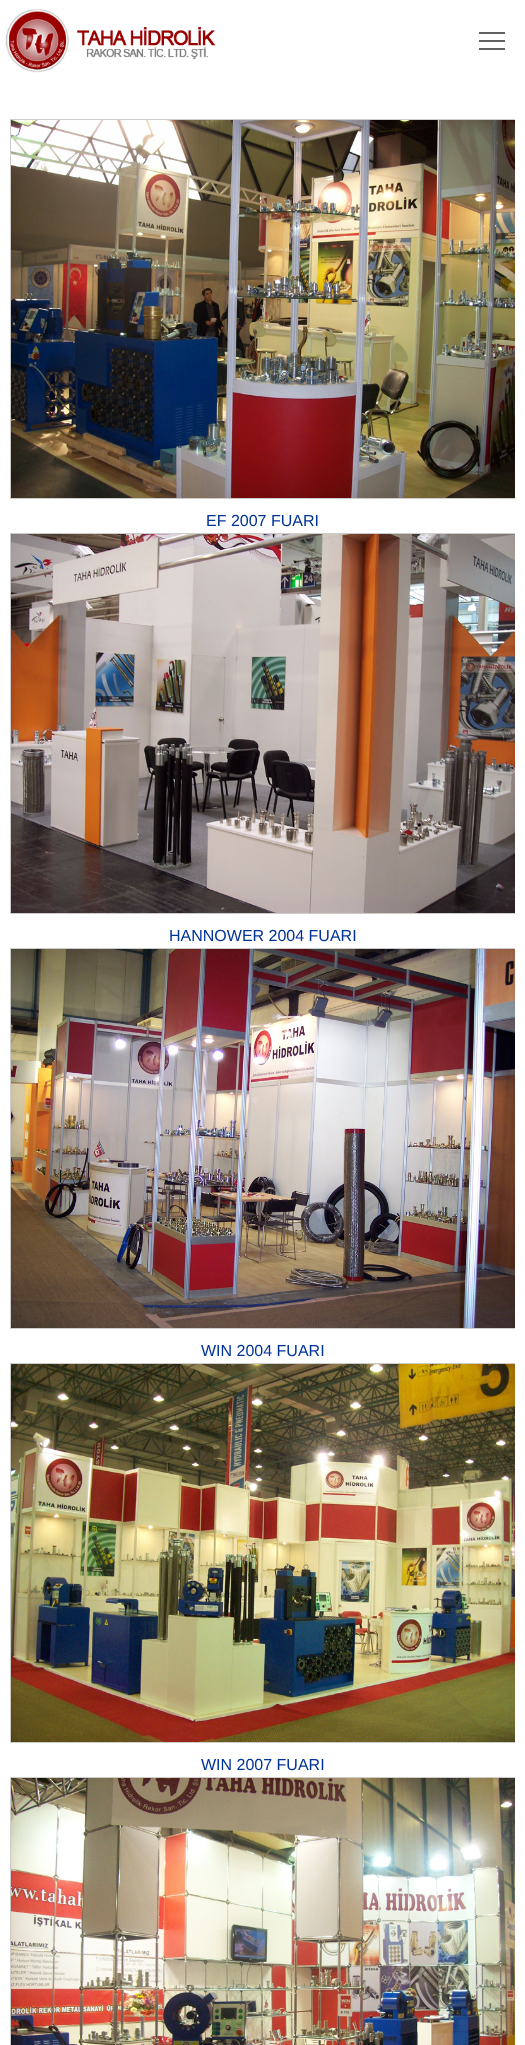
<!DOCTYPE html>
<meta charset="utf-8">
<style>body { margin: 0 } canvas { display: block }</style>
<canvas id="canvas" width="525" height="2045"></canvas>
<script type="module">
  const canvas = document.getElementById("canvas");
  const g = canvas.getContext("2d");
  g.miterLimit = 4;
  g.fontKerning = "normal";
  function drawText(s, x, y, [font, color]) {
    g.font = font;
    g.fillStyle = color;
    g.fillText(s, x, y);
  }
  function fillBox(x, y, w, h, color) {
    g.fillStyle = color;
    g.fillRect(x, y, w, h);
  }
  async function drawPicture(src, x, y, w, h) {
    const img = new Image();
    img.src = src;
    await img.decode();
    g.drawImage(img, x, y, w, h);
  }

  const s1 = ["16px Liberation Sans", "#003399"];

  fillBox(0, 0, 525, 2045, "#FFFFFF");
  await drawPicture("pic1.png", 5, 9, 211, 64);
  fillBox(479, 40, 26, 2, "#616161");
  fillBox(479, 32, 26, 2, "#616161");
  fillBox(479, 48, 26, 2, "#616161");
  g.save();
  g.beginPath();
  g.rect(10, 119, 505, 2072);
  g.clip();
  g.strokeStyle = "#CCCCCC";
  g.strokeRect(10.5, 119.5, 506, 379);
  g.restore();
  await drawPicture("pic2.png", 11, 120, 504, 378);
  drawText("EF 2007 FUARI", 206, 526, s1);
  g.save();
  g.beginPath();
  g.rect(10, 119, 505, 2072);
  g.clip();
  g.strokeStyle = "#CCCCCC";
  g.strokeRect(10.5, 533.5, 506, 380);
  g.restore();
  await drawPicture("pic3.png", 11, 534, 504, 379);
  drawText("HANNOWER 2004 FUARI", 169, 941, s1);
  g.save();
  g.beginPath();
  g.rect(10, 119, 505, 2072);
  g.clip();
  g.strokeStyle = "#CCCCCC";
  g.strokeRect(10.5, 948.5, 506, 380);
  g.restore();
  await drawPicture("pic4.png", 11, 949, 504, 379);
  drawText("WIN 2004 FUARI", 201, 1356, s1);
  g.save();
  g.beginPath();
  g.rect(10, 119, 505, 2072);
  g.clip();
  g.strokeStyle = "#CCCCCC";
  g.strokeRect(10.5, 1363.5, 506, 379);
  g.restore();
  await drawPicture("pic5.png", 11, 1364, 504, 378);
  drawText("WIN 2007 FUARI", 201, 1770, s1);
  g.save();
  g.beginPath();
  g.rect(10, 119, 505, 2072);
  g.clip();
  g.strokeStyle = "#CCCCCC";
  g.strokeRect(10.5, 1777.5, 506, 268);
  g.restore();
  await drawPicture("pic6.png", 11, 1778, 504, 267);
</script>
